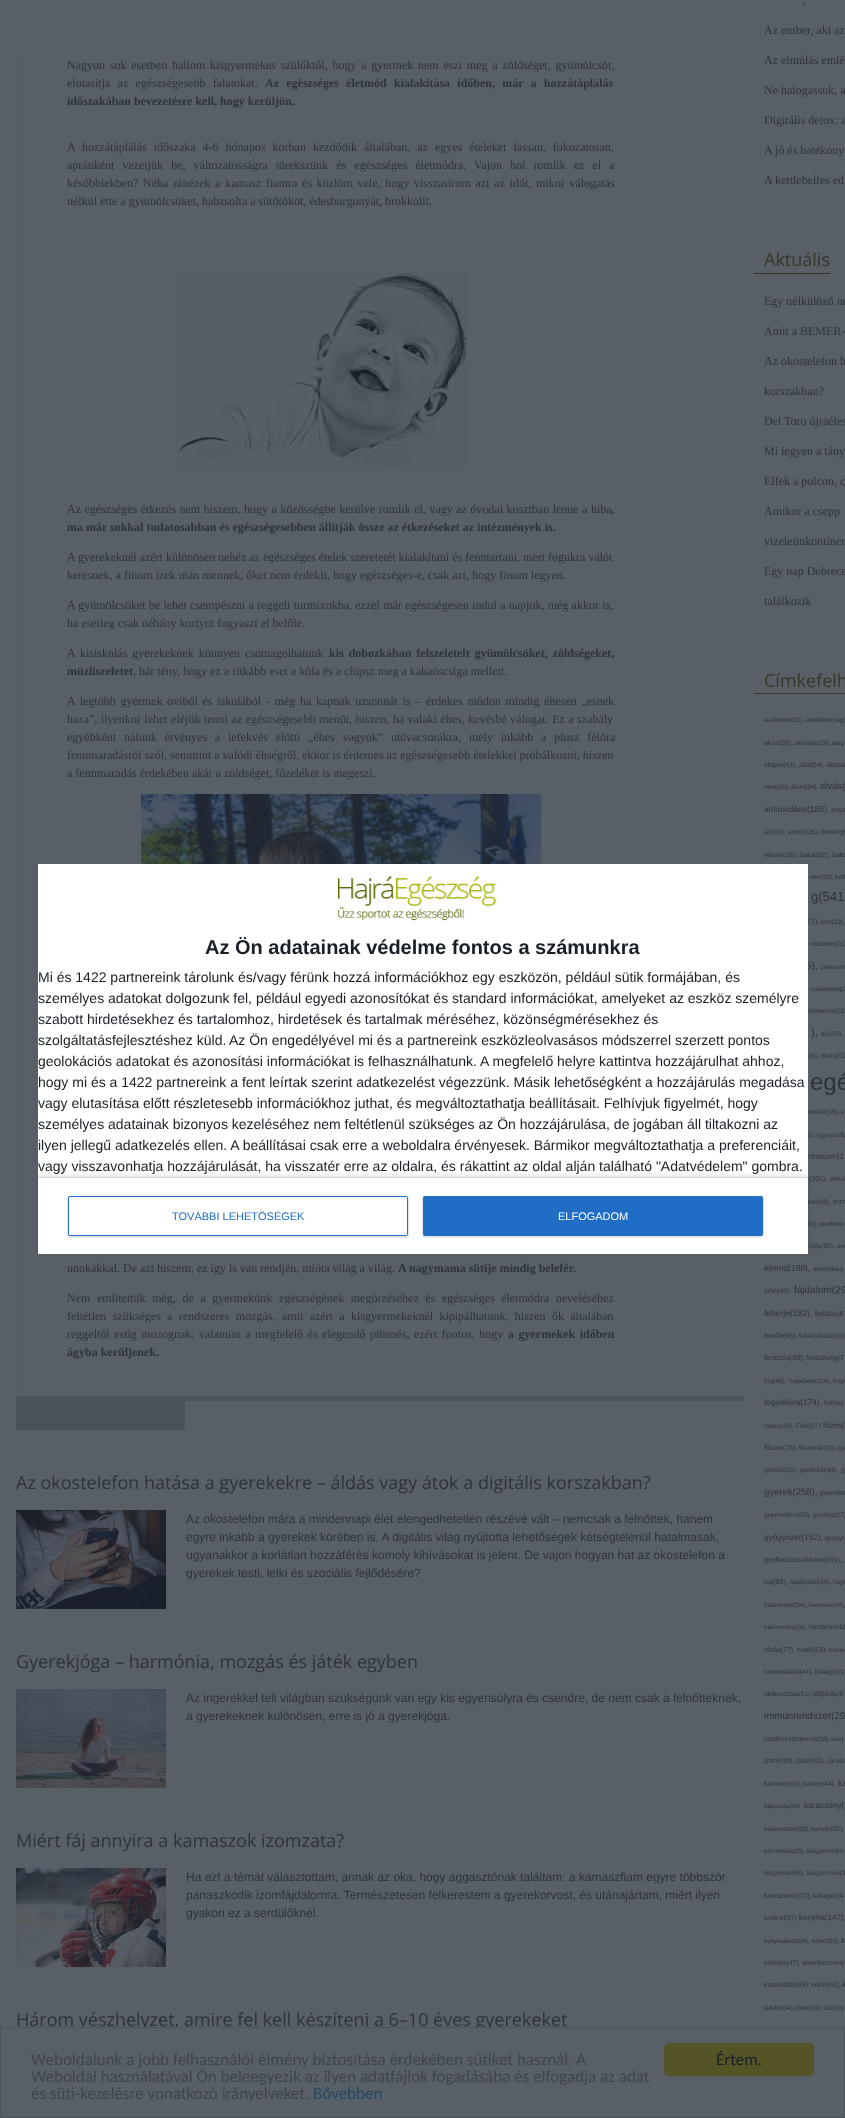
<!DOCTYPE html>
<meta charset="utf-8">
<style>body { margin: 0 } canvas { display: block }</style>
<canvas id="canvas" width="845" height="2118"></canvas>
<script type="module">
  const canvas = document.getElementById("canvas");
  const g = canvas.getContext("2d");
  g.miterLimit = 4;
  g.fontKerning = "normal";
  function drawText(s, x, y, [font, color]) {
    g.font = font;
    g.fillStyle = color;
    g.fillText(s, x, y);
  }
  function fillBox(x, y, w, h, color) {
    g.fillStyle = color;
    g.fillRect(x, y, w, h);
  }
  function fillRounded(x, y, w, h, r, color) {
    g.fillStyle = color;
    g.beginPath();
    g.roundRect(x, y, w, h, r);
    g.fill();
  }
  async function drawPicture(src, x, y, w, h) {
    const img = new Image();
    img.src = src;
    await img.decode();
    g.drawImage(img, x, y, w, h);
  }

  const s1 = ["12px Liberation Serif", "#2D333B"];
  const s2 = ["bold 12px Liberation Serif", "#2D333B"];
  const s3 = ["18px Open Sans", "#2D333B"];
  const s4 = ["12px Liberation Sans", "#2D333B"];
  const s5 = ["18px Open Sans", "#323A27"];
  const s6 = ["6.5px Liberation Sans", "#2D333B"];
  const s7 = ["9.5px Liberation Sans", "#2D333B"];
  const s8 = ["8.5px Liberation Sans", "#2D333B"];
  const s9 = ["7px Liberation Sans", "#2D333B"];
  const s10 = ["6.3px Liberation Sans", "#2D333B"];
  const s11 = ["7.5px Liberation Sans", "#2D333B"];
  const s12 = ["13px Liberation Sans", "#2D333B"];
  const s13 = ["8px Liberation Sans", "#2D333B"];
  const s14 = ["10px Liberation Sans", "#2D333B"];
  const s15 = ["11px Liberation Sans", "#2D333B"];
  const s16 = ["6.25px Liberation Sans", "#2D333B"];
  const s17 = ["24px Liberation Sans", "#2D333B"];
  const s18 = ["6.75px Liberation Sans", "#2D333B"];
  const s19 = ["7.25px Liberation Sans", "#2D333B"];
  const s20 = ["8.25px Liberation Sans", "#2D333B"];
  const s21 = ["9.75px Liberation Sans", "#2D333B"];
  const s22 = ["bold 20px Liberation Sans", "#191F27"];
  const s23 = ["14px Liberation Sans", "#191F27"];
  const s24 = ["11px Liberation Sans", "#206DC5"];
  const s25 = ["11px Liberation Sans", "#FFFFFF"];
  const s26 = ["17px Carlito", "#3F454D"];
  const s27 = ["17px Carlito", "#254963"];
  const s28 = ["17px Carlito", "#191F27"];

  fillBox(0, 0, 845, 2118, "#595F67");
  fillBox(16, 56, 1, 1340, "#555B63");
  g.wordSpacing = "1.75px";
  drawText("Nagyon sok esetben hallom kisgyermekes szülőktől, hogy a gyermek nem eszi meg a zöldséget, gyümölcsöt,", 67, 69, s1);
  g.wordSpacing = "4.25px";
  drawText("elutasítja az egészségesebb falatokat.", 67, 87, s1);
  drawText("Az egészséges életmód kialakítása időben, már a hozzátáplálás", 265, 87, s2);
  g.wordSpacing = "0px";
  drawText("időszakában bevezetésre kell, hogy kerüljön.", 67, 105, s2);
  g.wordSpacing = "4px";
  drawText("A hozzátáplálás időszaka 4-6 hónapos korban kezdődik általában, az egyes ételeket lassan, fokozatosan,", 67, 151, s1);
  g.wordSpacing = "5.1px";
  drawText("apránként vezetjük be, változatosságra törekszünk és egészséges életmódra. Vajon hol romlik ez el a", 67, 169, s1);
  g.wordSpacing = "1.75px";
  drawText("későbbiekben? Néha ránézek a kamasz fiamra és közlöm vele, hogy visszasírom azt az időt, mikor válogatás", 67, 187, s1);
  g.wordSpacing = "0px";
  drawText("nélkül ette a gyümölcsöket, habzsolta a sütőtököt, édesburgonyát, brokkolit.", 67, 205, s1);
  await drawPicture("pic1.png", 176, 272, 293, 198);
  g.wordSpacing = "0.5px";
  drawText("Az egészséges étkezés nem hiszem, hogy a közösségbe kerülve romlik el, vagy az óvodai kosztban lenne a hiba", 67, 513, s1);
  g.wordSpacing = "0px";
  drawText(",", 611, 513, s2);
  drawText("ma már sokkal tudatosabban és egészségesebben állítják össze az étkezéseket az intézmények is.", 67, 531, s2);
  drawText("A gyerekeknél azért különösen nehéz az egészséges ételek szeretetét kialakítani és fenntartani, mert fogukra valót", 67, 561, s1);
  drawText("keresnek, a finom ízek után mennek, őket nem érdekli, hogy egészséges-e, csak azt, hogy finom legyen.", 67, 579, s1);
  g.wordSpacing = "0.25px";
  drawText("A gyümölcsöket be lehet csempészni a reggeli turmixokba, ezzel már egészségesen indul a napjuk, még akkor is,", 67, 609, s1);
  g.wordSpacing = "0px";
  drawText("ha esetleg csak néhány kortyot fogyaszt el belőle.", 67, 627, s1);
  g.wordSpacing = "2px";
  drawText("A kisiskolás gyerekeknek könnyen csomagolhatunk", 67, 657, s1);
  drawText("kis dobozkában felszeletelt gyümölcsöket, zöldségeket,", 329, 657, s2);
  g.wordSpacing = "0px";
  drawText("müzliszeletet", 67, 675, s2);
  drawText(", bár tény, hogy ez a ritkább eset a kóla és a chipsz meg a kakaóscsiga mellett.", 133, 675, s1);
  g.wordSpacing = "1.7px";
  drawText("A legtöbb gyermek oviból és iskolából - még ha kapnak uzsonnát is – érdekes módon mindig éhesen „esnek", 67, 705, s1);
  g.wordSpacing = "0.5px";
  drawText("haza”, ilyenkor lehet eléjük tenni az egészségesebb menüt, hiszen, ha valaki éhes, kevésbé válogat. Ez a szabály", 67, 723, s1);
  g.wordSpacing = "4.75px";
  drawText("egyébként nálunk érvényes a lefekvés előtti „éhes vagyok” utóvacsorákra, mely inkább a plusz félóra", 67, 741, s1);
  g.wordSpacing = "0px";
  drawText("fennmaradásról szól, semmint a valódi éhségről, ekkor is érdemes az egészségesebb ételekkel próbálkozni, hiszen", 67, 759, s1);
  drawText("a fennmaradás érdekében akár a zöldséget, főzeléket is megeszi.", 67, 777, s1);
  await drawPicture("pic2.png", 141, 794, 400, 70);
  drawText("unokákkal. De azt hiszem, ez így is van rendjén, mióta világ a világ.", 67, 1272, s1);
  drawText("A nagymama sütije mindig belefér.", 398, 1272, s2);
  g.wordSpacing = "3.6px";
  drawText("Nem említettük még, de a gyermekünk egészségének megőrzéséhez és egészséges életmódra neveléséhez", 67, 1302, s1);
  g.wordSpacing = "3.4px";
  drawText("feltétlen szükséges a rendszeres mozgás, amit azért a kisgyermekeknél kipipálhatunk, hiszen ők általában", 67, 1320, s1);
  g.wordSpacing = "1.5px";
  drawText("reggeltől estig mozognak, valamint a megfelelő és elegendő pihenés, ezért fontos, hogy", 67, 1338, s1);
  drawText("a gyermekek időben", 508, 1338, s2);
  g.wordSpacing = "0px";
  drawText("ágyba kerüljenek.", 67, 1356, s2);
  fillBox(16, 1396, 728, 5, "#4C525B");
  fillBox(16, 1401, 169, 29, "#4C525B");
  drawText("Az okostelefon hatása a gyerekekre – áldás vagy átok a digitális korszakban?", 16, 1489, s3);
  await drawPicture("pic3.png", 16, 1510, 150, 99);
  drawText("Az okostelefon mára a mindennapi élet elengedhetetlen részévé vált – nemcsak a felnőttek, hanem", 186, 1523, s4);
  drawText("egyre inkább a gyerekek körében is. A digitális világ nyújtotta lehetőségek kétségtelenül hatalmasak,", 186, 1541, s4);
  drawText("ugyanakkor a korlátlan hozzáférés komoly kihívásokat is jelent. De vajon hogyan hat az okostelefon a", 186, 1559, s4);
  drawText("gyerekek testi, lelki és szociális fejlődésére?", 186, 1577, s4);
  drawText("Gyerekjóga – harmónia, mozgás és játék egyben", 16, 1668, s3);
  await drawPicture("pic4.png", 16, 1689, 150, 99);
  drawText("Az ingerekkel teli világban szükségünk van egy kis egyensúlyra és csendre, de nem csak a felnőtteknek,", 186, 1702, s4);
  drawText("a gyerekeknek különösen, erre is jó a gyerekjóga.", 186, 1720, s4);
  drawText("Miért fáj annyira a kamaszok izomzata?", 16, 1847, s3);
  await drawPicture("pic5.png", 16, 1868, 150, 99);
  drawText("Ha ezt a témát választottam, annak az oka, hogy aggasztónak találtam: a kamaszfiam egyre többször", 186, 1881, s4);
  drawText("panaszkodik izomfájdalomra. Természetesen felkerestem a gyerekorvost, és utánajártam, miért ilyen", 186, 1899, s4);
  drawText("gyakori ez a serdülőknél.", 186, 1917, s4);
  drawText("Három vészhelyzet, amire fel kell készíteni a 6–10 éves gyerekeket", 16, 2026, s3);
  drawText(",", 802, 4, s1);
  drawText("Az ember, aki az", 764, 34, s1);
  drawText("Az elmúlás emlé", 764, 64, s1);
  drawText("Ne halogassuk, a", 764, 94, s1);
  drawText("Digitális detox: a", 764, 124, s1);
  drawText("A jó és hatékony", 764, 154, s1);
  drawText("A kettlebelles ed", 764, 184, s1);
  fillBox(754, 273, 76, 1, "#323A27");
  drawText("Aktuális", 764, 266, s5);
  drawText("Egy nélkülöző ne", 764, 305, s1);
  drawText("Amit a BEMER-", 764, 335, s1);
  drawText("Az okostelefon h", 764, 365, s1);
  drawText("korszakban?", 764, 395, s1);
  drawText("Del Toro újraéles", 764, 425, s1);
  drawText("Mi legyen a tány", 764, 455, s1);
  drawText("Elfek a polcon, c", 764, 485, s1);
  drawText("Amikor a csepp", 764, 515, s1);
  drawText("vizeletinkontinen", 764, 545, s1);
  drawText("Egy nap Debrece", 764, 575, s1);
  drawText("találkozik", 764, 605, s1);
  fillBox(754, 693, 91, 1, "#323A27");
  drawText("Címkefelh", 764, 687, s5);
  drawText("A-vitamin(32),", 764, 722, s6);
  drawText("adalékanyag(", 806, 722, s6);
  drawText("akció(38),", 764, 745, s6);
  drawText("aktivitás(29),", 794, 745, s6);
  drawText("alap", 832, 745, s6);
  drawText("állapot(43),", 764, 767, s6);
  drawText("állat(54),", 799, 767, s6);
  drawText("állattar", 827, 767, s6);
  drawText("vera(28),", 764, 789, s6);
  drawText("álom(34),", 791, 789, s6);
  drawText("alvás(", 820, 789, s7);
  drawText("antioxidáns(185),", 764, 812, s8);
  drawText("anya", 831, 812, s9);
  drawText("arc(29),", 764, 834, s6);
  drawText("arcbőr(25),", 788, 834, s10);
  drawText("ásványi", 820, 834, s11);
  drawText("vitamin(36),", 764, 857, s6);
  drawText("baba(82),", 800, 857, s9);
  drawText("bakt", 832, 857, s9);
  drawText("éke(28),", 810, 879, s6);
  drawText("bélf", 835, 879, s6);
  drawText("g(541", 811, 901, s12);
  drawText("21),", 806, 924, s13);
  drawText("bolt(29),", 821, 924, s6);
  drawText("-vitamin(10", 809, 946, s11);
  drawText("5),", 806, 969, s14);
  drawText("csecsem", 820, 969, s6);
  drawText("cukorbeteg(2", 810, 991, s10);
  drawText("demencia(32", 807, 1013, s6);
  drawText("),", 811, 1036, s15);
  drawText("dió(50),", 821, 1036, s6);
  drawText("26),", 808, 1058, s16);
  drawText("ebéd(57", 821, 1058, s9);
  drawText("egé", 810, 1090, s17);
  drawText("etmód(55),", 807, 1114, s18);
  drawText("e", 841, 1114, s6);
  drawText("6),", 807, 1137, s16);
  drawText("egyensúly", 816, 1137, s18);
  drawText("elmiszer(1", 807, 1159, s13);
  drawText("(101),", 809, 1181, s9);
  drawText("életvi", 830, 1181, s6);
  drawText("ber(38),", 808, 1204, s6);
  drawText("em", 833, 1204, s13);
  drawText("31),", 807, 1226, s6);
  drawText("eredmén", 819, 1226, s6);
  drawText("rzés(38),", 809, 1248, s6);
  drawText("ese", 837, 1248, s6);
  drawText("étrend(190),", 764, 1271, s8);
  drawText("étrendkieg", 813, 1271, s6);
  drawText("fahéj(43),", 764, 1293, s6);
  drawText("fájdalom(29", 794, 1293, s14);
  drawText("fehérje(192),", 764, 1316, s8);
  drawText("fejfájás(8", 815, 1316, s9);
  drawText("felnőtt(66),", 764, 1338, s9);
  drawText("felszívódás(55)", 799, 1338, s18);
  drawText("fertőzés(90),", 764, 1360, s19);
  drawText("feszültség(7", 806, 1360, s9);
  drawText("fog(49),", 764, 1383, s6);
  drawText("fogadalom(24),", 789, 1383, s16);
  drawText("fogm", 833, 1383, s6);
  drawText("fogyókúra(174),", 764, 1405, s20);
  drawText("fokhag", 824, 1405, s6);
  drawText("fontos(25),", 764, 1428, s10);
  drawText("Föld(27),", 796, 1428, s6);
  drawText("főzés(", 823, 1428, s13);
  drawText("fűszer(78),", 764, 1450, s9);
  drawText("fűszerek(28),", 799, 1450, s6);
  drawText("ga", 838, 1450, s6);
  drawText("gomba(52),", 764, 1472, s6);
  drawText("gondolat(43),", 800, 1472, s6);
  drawText("g", 841, 1472, s9);
  drawText("gyerek(258),", 764, 1495, s7);
  drawText("gyereke", 819, 1495, s11);
  drawText("gyermekkor(35),", 764, 1517, s6);
  drawText("gyertya(27)", 813, 1517, s6);
  drawText("gyógyszer(162),", 764, 1540, s20);
  drawText("gyógyt", 825, 1540, s6);
  drawText("gyulladáscsökkentő(91),", 764, 1562, s19);
  drawText("haj(83),", 764, 1584, s9);
  drawText("hajápolás(34),", 790, 1584, s6);
  drawText("hajh", 833, 1584, s6);
  drawText("hasmenés(34),", 764, 1607, s6);
  drawText("hasznos(24),", 809, 1607, s16);
  drawText("házimunka(26),", 764, 1629, s16);
  drawText("háztartás(42", 809, 1629, s6);
  drawText("hízás(77),", 764, 1652, s9);
  drawText("hobbi(56),", 797, 1652, s18);
  drawText("home", 829, 1652, s10);
  drawText("hőmérséklet(44),", 764, 1674, s6);
  drawText("hőség(30),", 815, 1674, s6);
  drawText("időbeosztás(31),", 764, 1696, s6);
  drawText("időjárás(6", 813, 1696, s9);
  drawText("immunrendszer(29", 764, 1719, s21);
  drawText("inzulinrezisztencia(33),", 764, 1741, s6);
  drawText("írás(", 831, 1741, s16);
  drawText("izom(90),", 764, 1763, s19);
  drawText("ízület(52),", 796, 1763, s6);
  drawText("járván", 828, 1763, s6);
  drawText("kalcium(65),", 764, 1786, s9);
  drawText("kálium(44),", 803, 1786, s6);
  drawText("ka", 838, 1786, s8);
  drawText("káposzta(24),", 764, 1808, s16);
  drawText("karácsony(", 804, 1808, s20);
  drawText("kellemetlen(28),", 764, 1831, s6);
  drawText("kenyér(32),", 811, 1831, s6);
  drawText("kézmosás(25), kiegyensúlyo", 764, 1853, s10);
  drawText("kisgyerek(45),", 764, 1875, s6);
  drawText("kisgyermek(3", 807, 1875, s6);
  drawText("koleszterin(72),", 764, 1898, s9);
  drawText("kollagén(4", 813, 1898, s6);
  drawText("kontroll(27),", 764, 1920, s6);
  drawText("konyha(147),", 799, 1920, s13);
  drawText("könyvajánló(24),", 764, 1943, s16);
  drawText("köret(28),", 812, 1943, s6);
  drawText("k", 841, 1943, s13);
  drawText("kötődés(47),", 764, 1965, s6);
  drawText("következmény(", 803, 1965, s6);
  drawText("kreativitás(69),", 764, 1987, s9);
  drawText("krém(60),", 811, 1987, s9);
  drawText("k", 842, 1987, s13);
  drawText("lakás(64),", 764, 2010, s9);
  drawText("látás(32),", 796, 2010, s6);
  drawText("láz(39)", 824, 2010, s6);
  fillBox(38, 864, 770, 390, "#FFFFFF");
  await drawPicture("pic6.png", 338, 876, 159, 45);
  drawText("Az Ön adatainak védelme fontos a számunkra", 205, 954, s22);
  drawText("Mi és 1422 partnereink tárolunk és/vagy férünk hozzá információkhoz egy eszközön, például sütik formájában, és", 38, 982, s23);
  drawText("személyes adatokat dolgozunk fel, például egyedi azonosítókat és standard információkat, amelyeket az eszköz személyre", 38, 1003, s23);
  drawText("szabott hirdetésekhez és tartalomhoz, hirdetések és tartalmak méréséhez, közönségmérésekhez és", 38, 1024, s23);
  drawText("szolgáltatásfejlesztéshez küld.", 38, 1045, s23);
  drawText("Az Ön engedélyével mi és a partnereink eszközleolvasásos módszerrel szerzett pontos", 229, 1045, s23);
  drawText("geolokációs adatokat és azonosítási információkat is felhasználhatunk. A megfelelő helyre kattintva hozzájárulhat ahhoz,", 38, 1066, s23);
  drawText("hogy mi és a 1422 partnereink a fent leírtak szerint adatkezelést végezzünk. Másik lehetőségként a hozzájárulás megadása", 38, 1087, s23);
  drawText("vagy elutasítása előtt részletesebb információkhoz juthat, és megváltoztathatja beállításait. Felhívjuk figyelmét, hogy", 38, 1108, s23);
  drawText("személyes adatainak bizonyos kezeléséhez nem feltétlenül szükséges az Ön hozzájárulása, de jogában áll tiltakozni az", 38, 1129, s23);
  drawText("ilyen jellegű adatkezelés ellen. A beállításai csak erre a weboldalra érvényesek. Bármikor megváltoztathatja a preferenciáit,", 38, 1150, s23);
  drawText("vagy visszavonhatja hozzájárulását, ha visszatér erre az oldalra, és rákattint az oldal alján található \"Adatvédelem\" gombra.", 38, 1171, s23);
  g.save();
  g.beginPath();
  g.moveTo(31, 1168);
  g.lineTo(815, 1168);
  g.lineTo(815, 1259);
  g.lineTo(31, 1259);
  g.closePath();
  g.moveTo(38, 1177);
  g.lineTo(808, 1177);
  g.lineTo(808, 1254);
  g.lineTo(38, 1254);
  g.closePath();
  g.clip("evenodd");
  g.fillStyle = "rgba(0, 0, 0, 0.1)";
  g.filter = "blur(2px)";
  g.beginPath();
  g.rect(38, 1175, 770, 77);
  g.fill();
  g.filter = "none";
  g.restore();
  fillBox(38, 1177, 770, 1, "#D8D8D8");
  g.fillStyle = "rgba(0, 0, 0, 0.1)";
  g.filter = "blur(0.5px)";
  g.beginPath();
  g.roundRect(67, 1196, 342, 42, 3);
  g.fill();
  g.filter = "none";
  g.fillStyle = "#FFFFFF";
  g.beginPath();
  g.roundRect(68.5, 1196.5, 339, 39, 1.5);
  g.fill();
  g.strokeStyle = "#206DC5";
  g.stroke();
  g.save();
  g.beginPath();
  g.rect(172, 1211, 132, 11);
  g.clip();
  drawText("TOVÁBBI LEHETŐSÉGEK", 172, 1220, s24);
  g.restore();
  g.fillStyle = "rgba(0, 0, 0, 0.1)";
  g.filter = "blur(0.5px)";
  g.beginPath();
  g.roundRect(422, 1196, 342, 42, 3);
  g.fill();
  g.filter = "none";
  fillRounded(423, 1196, 340, 40, 2, "#206DC5");
  drawText("ELFOGADOM", 558, 1220, s25);
  fillBox(140, 2028, 350, 3, "#595F67");
  g.strokeStyle = "#4C525A";
  g.strokeRect(0.5, 2027.5, 844, 90);
  drawText("Weboldalunk a jobb felhasználói élmény biztosítása érdekében sütiket használ. A", 31, 2065, s26);
  drawText("Weboldal használatával Ön beleegyezik az ilyen adatfájlok fogadásába és elfogadja az adat", 31, 2082, s26);
  drawText("és süti-kezelésre vonatkozó irányelveket.", 31, 2099, s26);
  drawText("Bővebben", 313, 2099, s27);
  fillRounded(664, 2043, 150, 33, 5, "#555427");
  drawText("Értem.", 716, 2065, s28);
</script>
